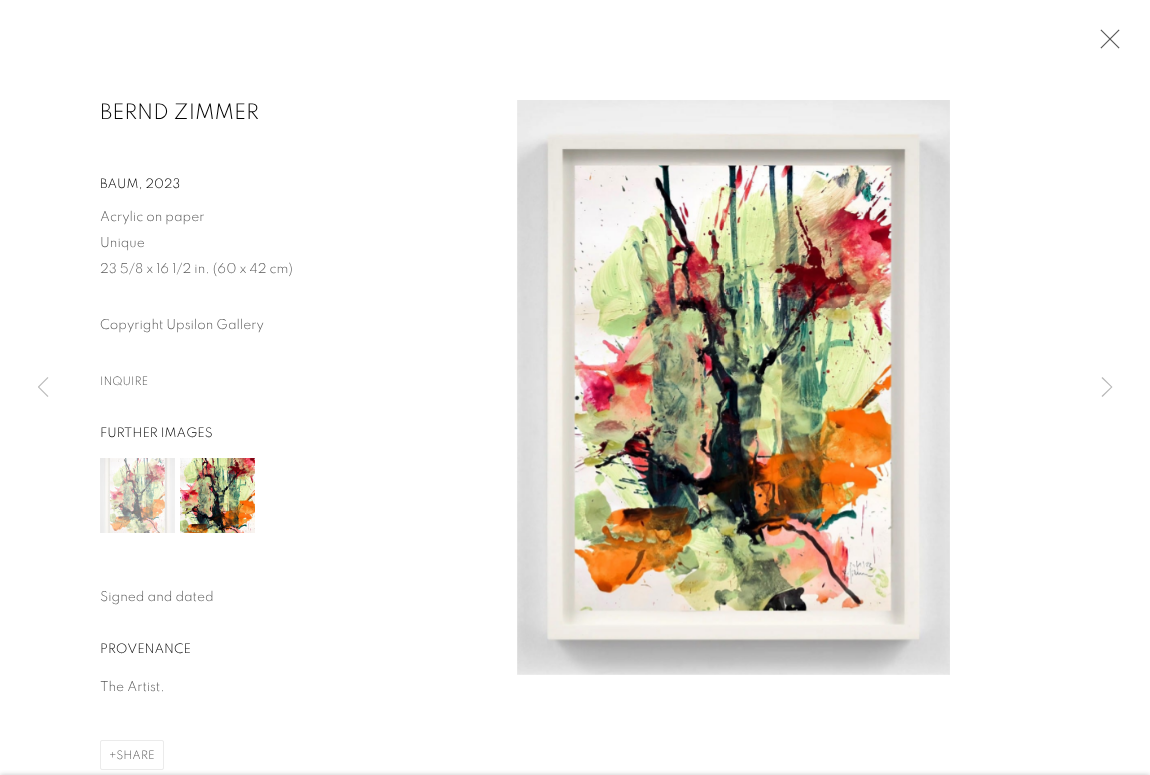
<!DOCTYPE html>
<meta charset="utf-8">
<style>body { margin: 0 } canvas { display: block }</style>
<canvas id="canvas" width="1150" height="775"></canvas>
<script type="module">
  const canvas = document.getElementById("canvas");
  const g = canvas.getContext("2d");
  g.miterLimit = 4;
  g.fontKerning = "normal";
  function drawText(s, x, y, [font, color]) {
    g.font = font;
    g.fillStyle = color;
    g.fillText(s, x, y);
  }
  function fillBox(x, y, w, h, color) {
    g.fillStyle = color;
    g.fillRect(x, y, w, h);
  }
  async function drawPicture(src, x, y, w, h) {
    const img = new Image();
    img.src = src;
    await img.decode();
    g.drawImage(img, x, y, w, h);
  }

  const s1 = ["300 22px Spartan", "#010101"];
  const s2 = ["300 13.5px Spartan", "#010101"];
  const s3 = ["300 14px Spartan", "#585858"];
  const s4 = ["300 12px Spartan", "#585858"];

  fillBox(0, 0, 1150, 775, "#FFFFFF");
  await drawPicture("pic1.png", 1100, 29, 20, 20);
  drawText("BERND ZIMMER", 100, 119, s1);
  drawText("BAUM, 2023", 100, 188, s2);
  drawText("Acrylic on paper", 100, 221, s3);
  drawText("Unique", 100, 247, s3);
  drawText("23 5/8 x 16 1/2 in. (60 x 42 cm)", 100, 273, s3);
  drawText("Copyright Upsilon Gallery", 100, 329, s3);
  drawText("INQUIRE", 100, 385, s4);
  drawText("FURTHER IMAGES", 100, 437, s2);
  await drawPicture("pic2.png", 100, 458, 75, 75);
  await drawPicture("pic3.png", 180, 458, 75, 75);
  drawText("Signed and dated", 100, 601, s3);
  drawText("PROVENANCE", 100, 653, s2);
  drawText("The Artist.", 100, 691, s3);
  g.beginPath();
  g.roundRect(100.5, 740.5, 63, 29, 1.5);
  g.strokeStyle = "#EBEBEB";
  g.stroke();
  drawText("+SHARE", 109, 759, s4);
  await drawPicture("pic4.png", 517, 100, 433, 575);
  await drawPicture("pic5.png", 38, 377, 11, 20);
  g.fillStyle = "#B9B9B9";
  g.beginPath();
  g.moveTo(1112.5, 387);
  g.lineTo(1102.5, 377);
  g.lineTo(1101.5, 378);
  g.lineTo(1111, 387);
  g.lineTo(1101.5, 396);
  g.lineTo(1102.5, 397);
  g.closePath();
  g.fill();
  g.fillStyle = "rgba(0, 0, 0, 0.23)";
  g.filter = "blur(2.5px)";
  g.beginPath();
  g.rect(0, 775, 1150, 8);
  g.fill();
  g.filter = "none";
</script>
